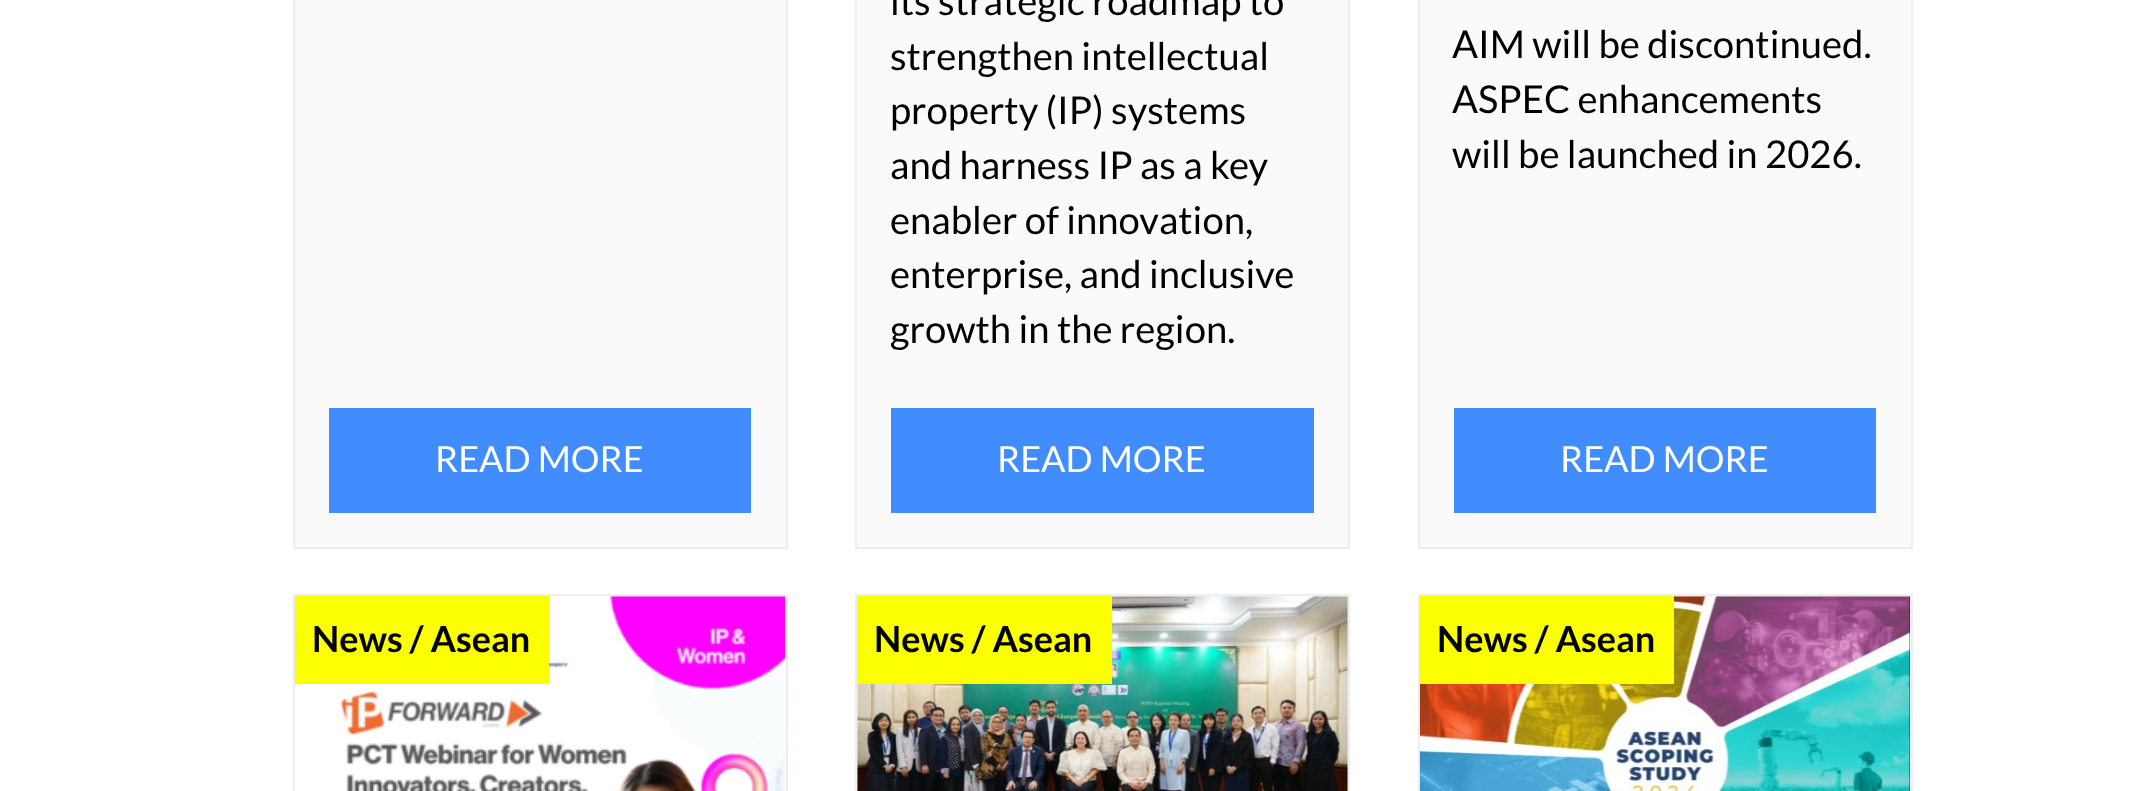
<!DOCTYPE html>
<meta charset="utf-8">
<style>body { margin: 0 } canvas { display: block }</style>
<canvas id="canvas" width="2134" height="791"></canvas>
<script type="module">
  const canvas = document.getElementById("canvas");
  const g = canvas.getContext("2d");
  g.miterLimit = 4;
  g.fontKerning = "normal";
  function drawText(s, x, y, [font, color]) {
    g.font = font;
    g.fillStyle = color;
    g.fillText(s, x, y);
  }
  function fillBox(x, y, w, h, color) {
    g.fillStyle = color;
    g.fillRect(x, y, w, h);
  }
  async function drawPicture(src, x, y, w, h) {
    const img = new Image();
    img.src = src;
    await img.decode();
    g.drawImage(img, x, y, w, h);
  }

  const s1 = ["36px Lato", "#FFFFFF"];
  const s2 = ["38.25px Lato", "#000000"];
  const s3 = ["bold 36px Lato", "#000000"];

  fillBox(0, 0, 2134, 791, "#FFFFFF");
  g.fillStyle = "#FAFAFA";
  g.beginPath();
  g.rect(294, -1, 493, 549);
  g.fill();
  g.strokeStyle = "#EEEEEE";
  g.lineWidth = 2;
  g.stroke();
  fillBox(329, 408, 422, 105, "#418DFF");
  drawText("READ MORE", 435, 472, s1);
  fillBox(857, 0, 491, 374, "#FAFAFA");
  g.strokeRect(856, -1, 493, 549);
  drawText("its strategic roadmap to", 890, 15, s2);
  drawText("strengthen intellectual", 890, 70, s2);
  drawText("property (IP) systems", 890, 124, s2);
  drawText("and harness IP as a key", 890, 179, s2);
  drawText("enabler of innovation,", 890, 234, s2);
  drawText("enterprise, and inclusive", 890, 288, s2);
  drawText("growth in the region.", 890, 343, s2);
  g.fillStyle = "#418DFF";
  g.beginPath();
  g.rect(874, 391, 457, 139);
  g.fill();
  g.strokeStyle = "#FAFAFA";
  g.lineWidth = 34;
  g.stroke();
  drawText("READ MORE", 997, 472, s1);
  g.fillStyle = "#FAFAFA";
  g.beginPath();
  g.rect(1419, -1, 493, 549);
  g.fill();
  g.strokeStyle = "#EEEEEE";
  g.lineWidth = 2;
  g.stroke();
  drawText("AIM will be discontinued.", 1452, 58, s2);
  drawText("ASPEC enhancements", 1452, 113, s2);
  drawText("will be launched in 2026.", 1452, 168, s2);
  fillBox(1454, 408, 422, 105, "#418DFF");
  drawText("READ MORE", 1560, 472, s1);
  fillBox(549, 596, 237, 195, "#FAFAFA");
  g.strokeRect(294, 595, 493, 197);
  await drawPicture("pic1.png", 295, 596, 491, 195);
  fillBox(295, 596, 254, 88, "#FBFF01");
  drawText("News / Asean", 312, 652, s3);
  g.fillStyle = "#FAFAFA";
  g.beginPath();
  g.rect(856, 595, 493, 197);
  g.fill();
  g.stroke();
  await drawPicture("pic2.png", 857, 596, 491, 195);
  fillBox(857, 596, 255, 88, "#FBFF01");
  drawText("News / Asean", 874, 652, s3);
  fillBox(1674, 596, 237, 195, "#FAFAFA");
  g.strokeRect(1419, 595, 493, 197);
  await drawPicture("pic3.png", 1419, 596, 492, 195);
  fillBox(1420, 596, 254, 88, "#FBFF01");
  drawText("News / Asean", 1437, 652, s3);
</script>
